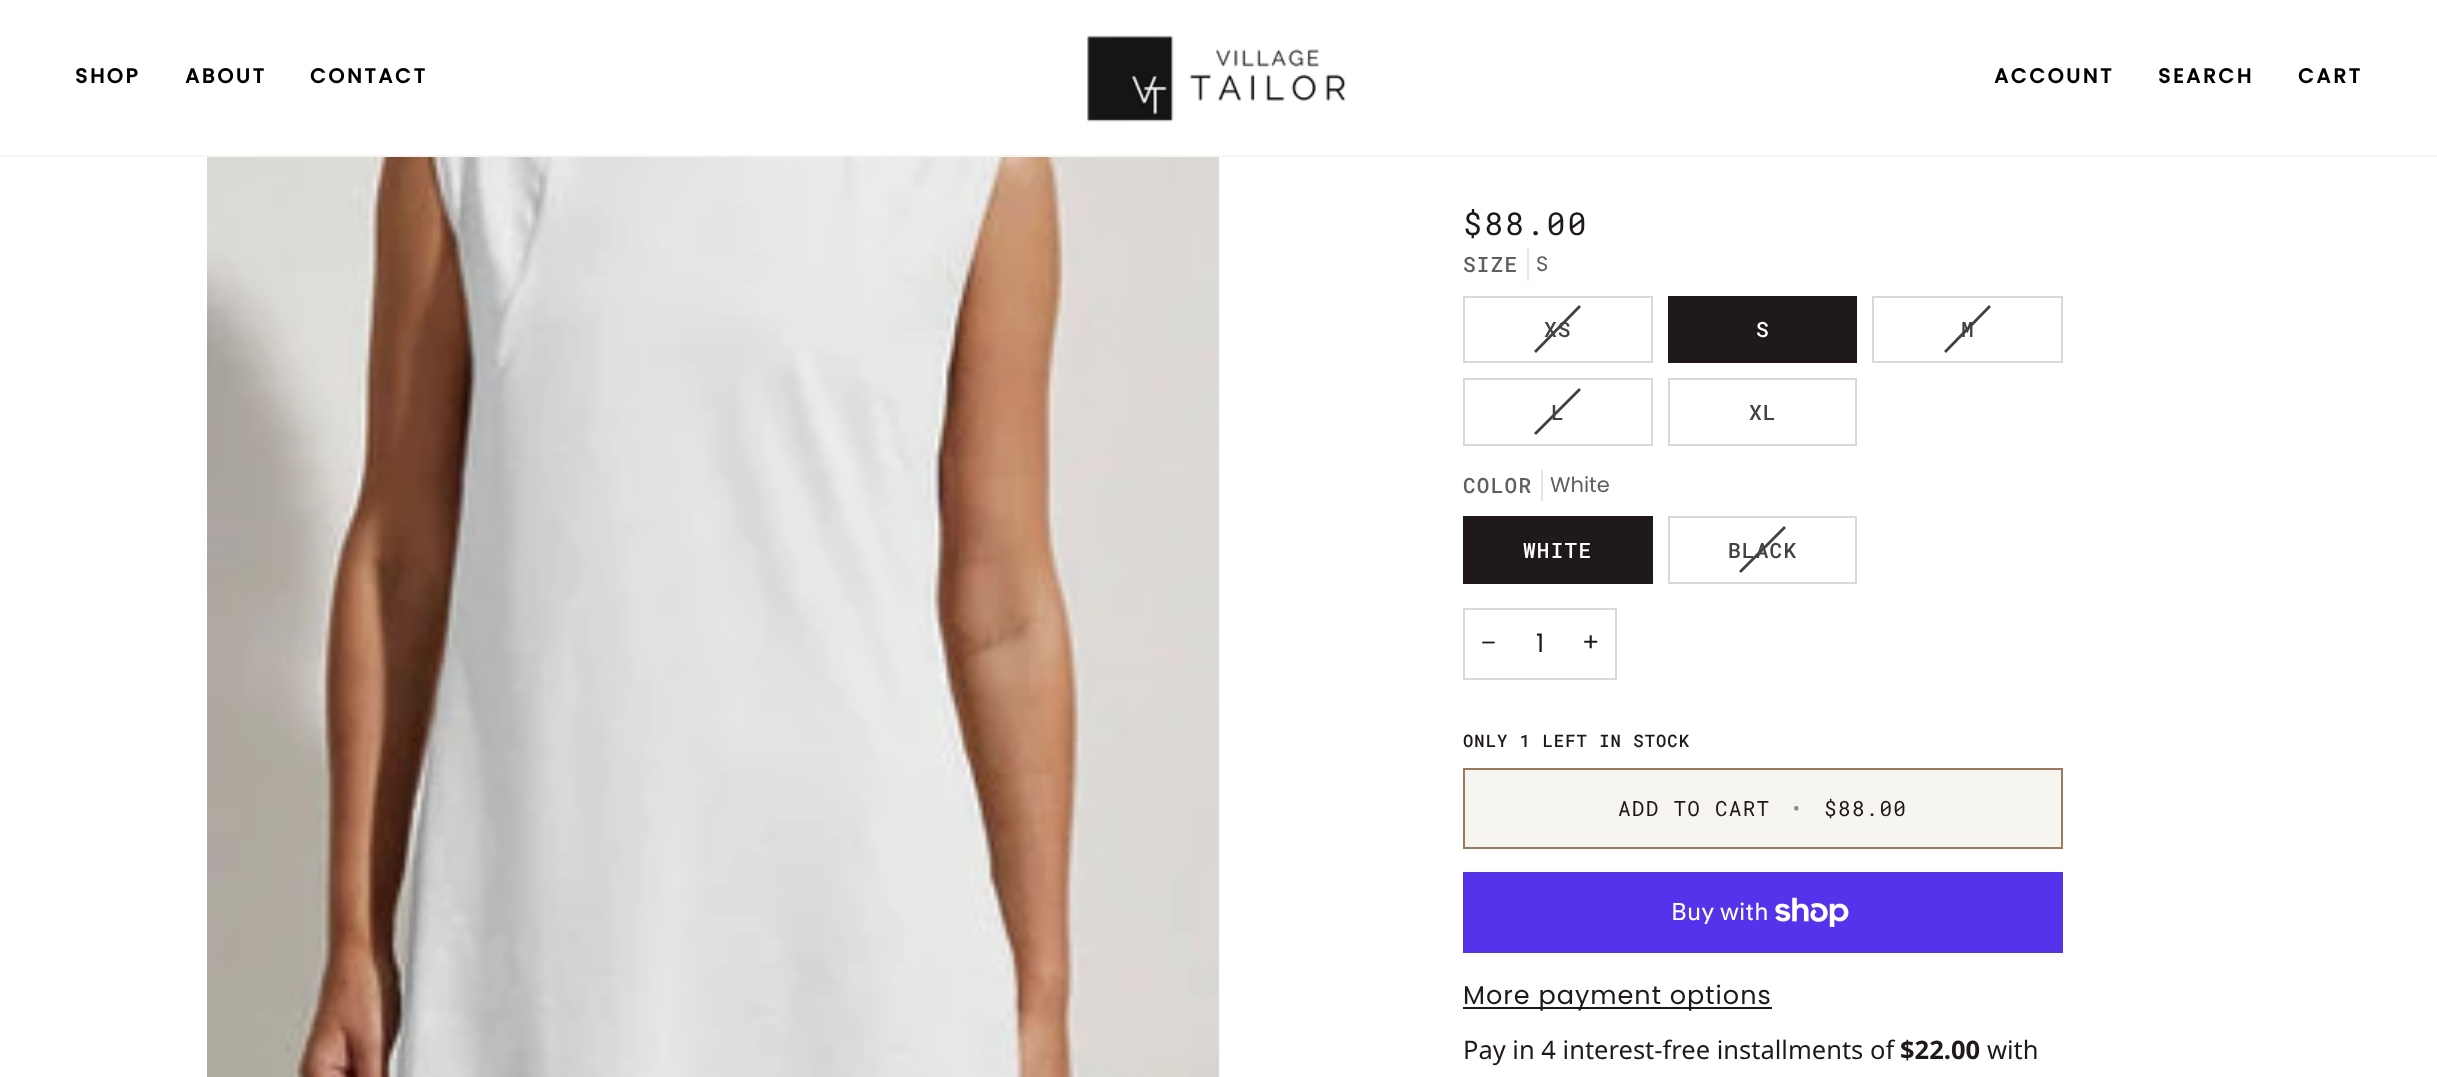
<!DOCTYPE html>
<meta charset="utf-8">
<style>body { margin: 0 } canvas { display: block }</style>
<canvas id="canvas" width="2437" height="1077"></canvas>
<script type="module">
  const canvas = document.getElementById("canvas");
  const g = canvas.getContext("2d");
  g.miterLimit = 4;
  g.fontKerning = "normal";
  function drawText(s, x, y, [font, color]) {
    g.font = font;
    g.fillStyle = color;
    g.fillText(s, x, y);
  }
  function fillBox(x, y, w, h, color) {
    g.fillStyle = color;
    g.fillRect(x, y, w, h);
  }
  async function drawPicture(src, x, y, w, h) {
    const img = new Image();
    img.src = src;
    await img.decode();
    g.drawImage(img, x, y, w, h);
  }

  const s1 = ["bold 20.5px Poppins", "#000000"];
  const s2 = ["31.5px Roboto Mono", "#1F1919"];
  const s3 = ["500 21px Roboto Mono", "#625E5E"];
  const s4 = ["21px Poppins", "#625E5E"];
  const s5 = ["500 21px Roboto Mono", "#424242"];
  const s6 = ["500 21px Roboto Mono", "#FFFFFF"];
  const s7 = ["25.5px Liberation Sans", "#1F1919"];
  const s8 = ["25.5px Poppins", "#1F1919"];
  const s9 = ["500 17.25px Roboto Mono", "#1F1919"];
  const s10 = ["21px Roboto Mono", "#1F1919"];
  const s11 = ["21px Roboto Mono", "#8A8987"];
  const s12 = ["24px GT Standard", "#FFFFFF"];
  const s13 = ["25.5px Noto Sans", "#1F1919"];
  const s14 = ["bold 25.5px Noto Sans", "#1F1919"];

  fillBox(0, 0, 2437, 1077, "#FFFFFF");
  fillBox(0, 155, 2437, 2, "#F6F5F0");
  g.letterSpacing = "2.5px";
  drawText("SHOP", 75, 83, s1);
  drawText("ABOUT", 185, 83, s1);
  drawText("CONTACT", 310, 83, s1);
  await drawPicture("pic1.png", 1087, 35, 259, 87);
  drawText("ACCOUNT", 1994, 83, s1);
  drawText("SEARCH", 2158, 83, s1);
  drawText("CART", 2298, 83, s1);
  await drawPicture("pic2.png", 207, 157, 1013, 920);
  g.letterSpacing = "2px";
  drawText("$88.00", 1463, 235, s2);
  g.letterSpacing = "1.25px";
  drawText("SIZE", 1463, 272, s3);
  fillBox(1527, 249, 2, 32, "#E5E5E5");
  g.letterSpacing = "0px";
  drawText("S", 1536, 271, s4);
  g.strokeStyle = "#D9D9D9";
  g.lineWidth = 2;
  g.strokeRect(1464, 297, 188, 65);
  g.fillStyle = "#424242";
  g.beginPath();
  g.moveTo(1579, 305);
  g.lineTo(1581, 307);
  g.lineTo(1536, 353);
  g.lineTo(1534, 351);
  g.closePath();
  g.fill();
  g.letterSpacing = "1.25px";
  drawText("XS", 1544, 337, s5);
  fillBox(1668, 296, 189, 67, "#1F1919");
  drawText("S", 1756, 337, s6);
  g.strokeRect(1873, 297, 189, 65);
  g.fillStyle = "#424242";
  g.beginPath();
  g.moveTo(1989, 305);
  g.lineTo(1991, 307);
  g.lineTo(1946, 353);
  g.lineTo(1944, 351);
  g.closePath();
  g.fill();
  drawText("M", 1961, 337, s5);
  g.strokeRect(1464, 379, 188, 66);
  g.beginPath();
  g.moveTo(1579, 388);
  g.lineTo(1581, 390);
  g.lineTo(1536, 435);
  g.lineTo(1534, 433);
  g.closePath();
  g.fill();
  drawText("L", 1551, 420, s5);
  g.strokeRect(1669, 379, 187, 66);
  drawText("XL", 1749, 420, s5);
  drawText("COLOR", 1463, 493, s3);
  fillBox(1541, 470, 2, 31, "#E5E5E5");
  g.letterSpacing = "0px";
  drawText("White", 1550, 492, s4);
  fillBox(1463, 516, 190, 68, "#1F1919");
  g.letterSpacing = "1.25px";
  drawText("WHITE", 1523, 558, s6);
  g.strokeRect(1669, 517, 187, 66);
  g.fillStyle = "#424242";
  g.beginPath();
  g.moveTo(1784, 526);
  g.lineTo(1786, 528);
  g.lineTo(1741, 573);
  g.lineTo(1739, 571);
  g.closePath();
  g.fill();
  drawText("BLACK", 1728, 558, s5);
  g.strokeRect(1464, 609, 152, 70);
  g.letterSpacing = "0px";
  drawText("−", 1481, 651, s7);
  drawText("1", 1536, 652, s8);
  drawText("+", 1582, 651, s8);
  g.letterSpacing = "1px";
  drawText("ONLY 1 LEFT IN STOCK", 1463, 747, s9);
  g.fillStyle = "#F6F5F0";
  g.beginPath();
  g.rect(1464, 769, 598, 79);
  g.fill();
  g.strokeStyle = "#9A7B5F";
  g.stroke();
  g.letterSpacing = "1.25px";
  drawText("ADD TO CART", 1618, 816, s10);
  drawText("•", 1790, 816, s11);
  drawText("$88.00", 1824, 816, s10);
  fillBox(1463, 872, 600, 81, "#5433EB");
  g.letterSpacing = "0px";
  drawText("Buy with", 1671, 920, s12);
  await drawPicture("pic3.png", 1775, 897, 74, 30);
  fillBox(1463, 1007, 309, 2, "#1F1919");
  g.letterSpacing = "1px";
  drawText("More payment options", 1463, 1004, s8);
  g.letterSpacing = "0px";
  drawText("Pay in 4 interest-free installments of", 1463, 1059, s13);
  drawText("$22.00", 1900, 1059, s14);
  drawText("with", 1987, 1059, s13);
</script>
